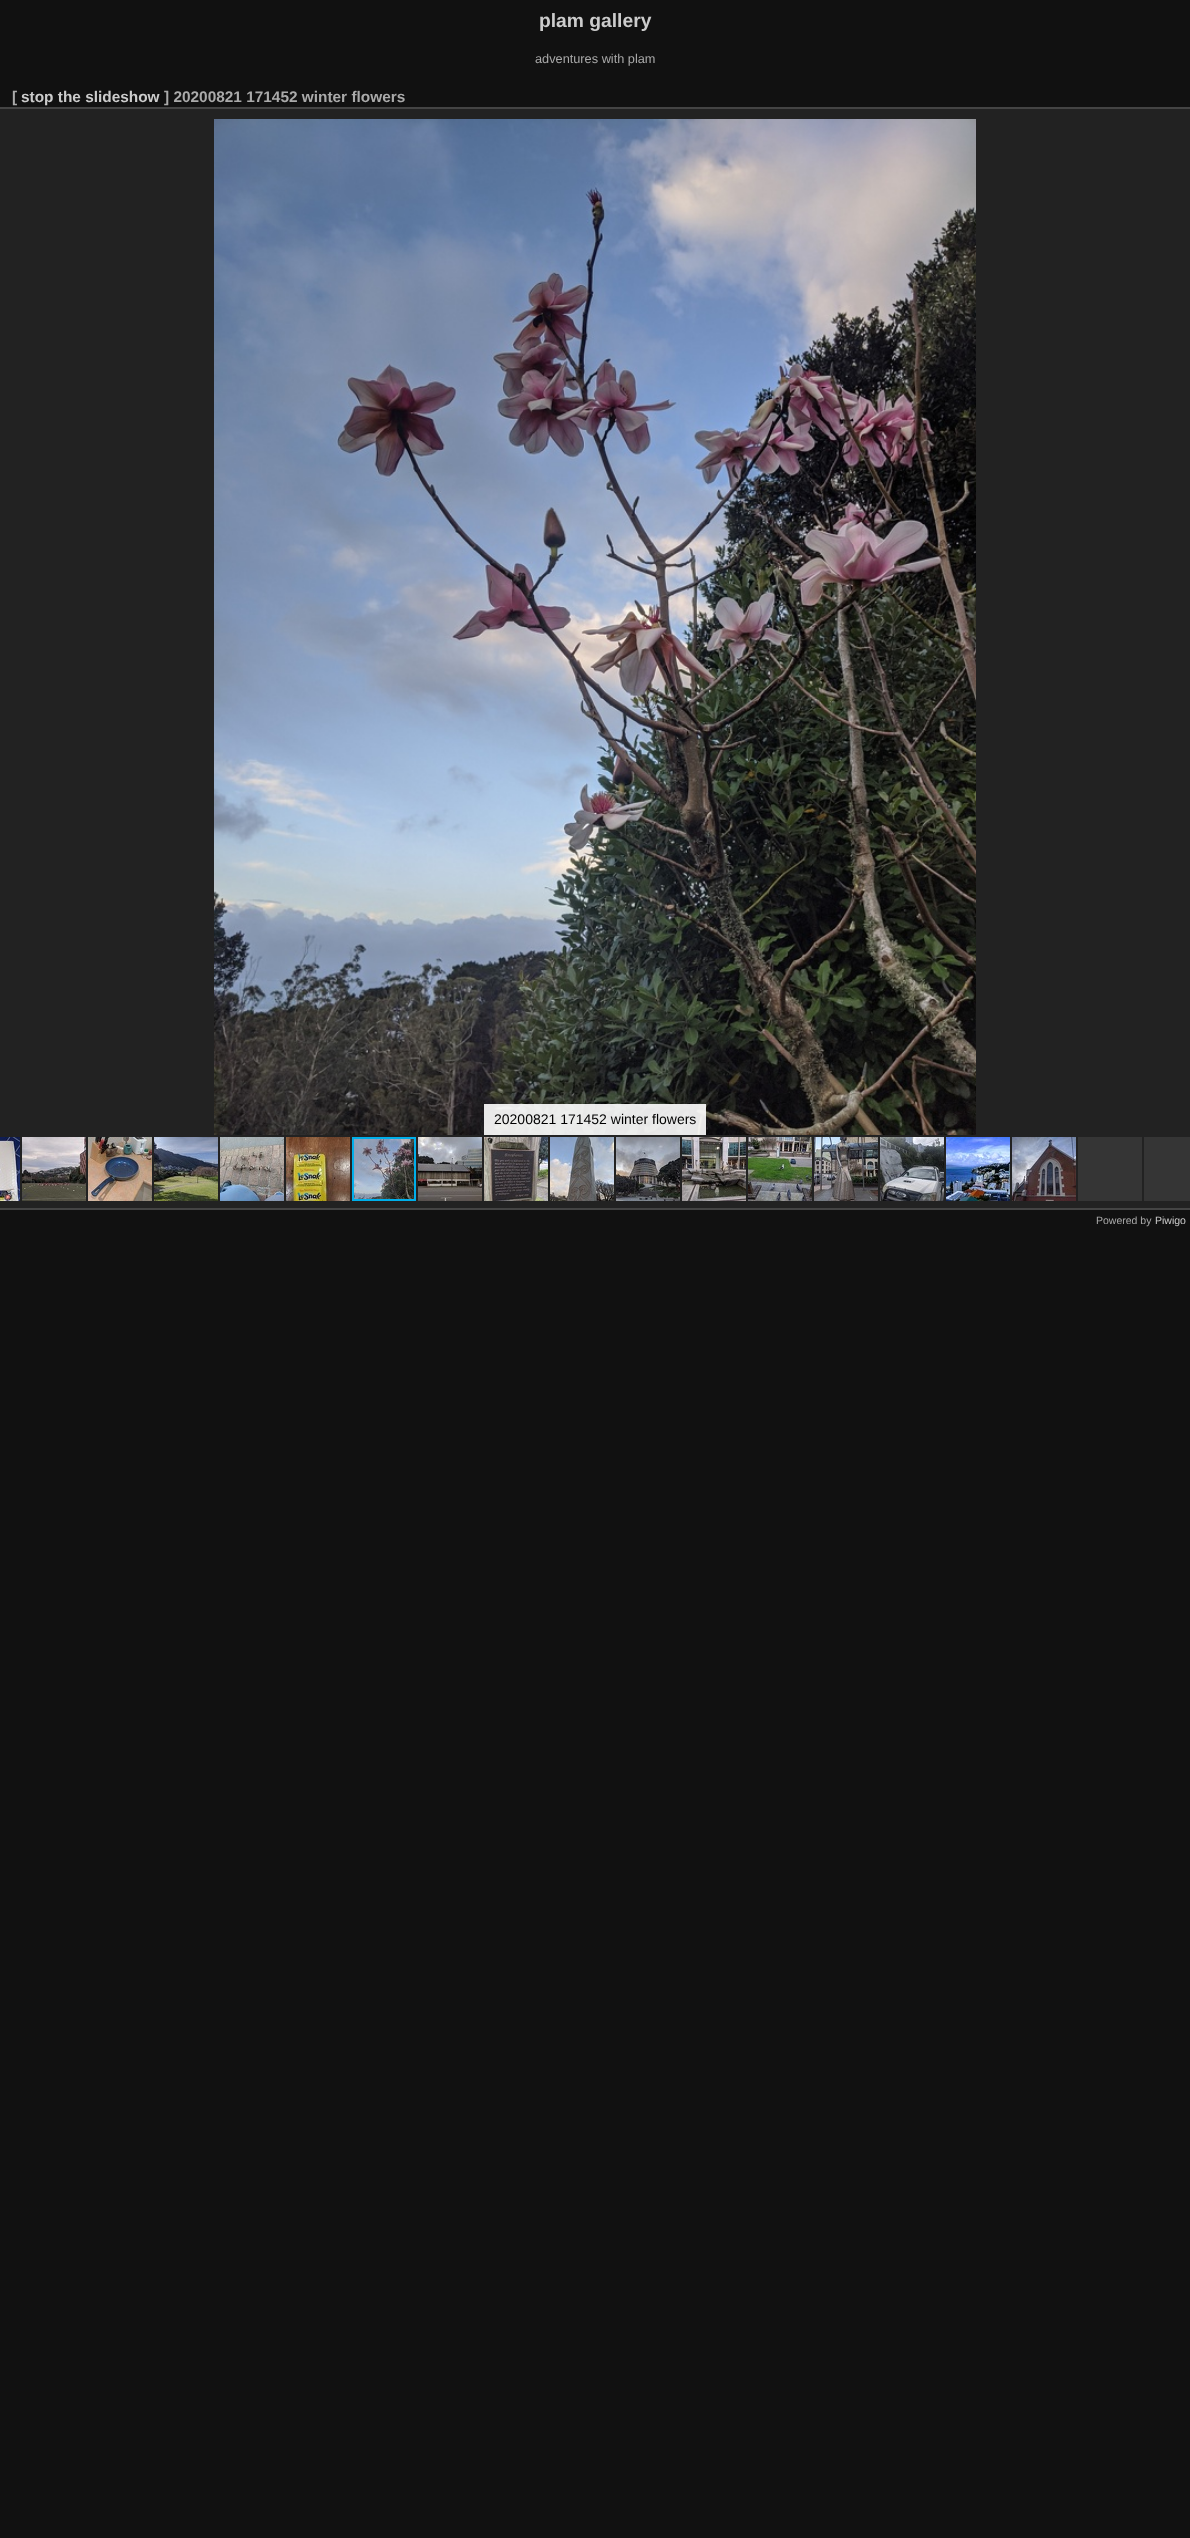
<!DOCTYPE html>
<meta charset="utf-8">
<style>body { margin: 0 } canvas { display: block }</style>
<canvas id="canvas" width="1190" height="2538"></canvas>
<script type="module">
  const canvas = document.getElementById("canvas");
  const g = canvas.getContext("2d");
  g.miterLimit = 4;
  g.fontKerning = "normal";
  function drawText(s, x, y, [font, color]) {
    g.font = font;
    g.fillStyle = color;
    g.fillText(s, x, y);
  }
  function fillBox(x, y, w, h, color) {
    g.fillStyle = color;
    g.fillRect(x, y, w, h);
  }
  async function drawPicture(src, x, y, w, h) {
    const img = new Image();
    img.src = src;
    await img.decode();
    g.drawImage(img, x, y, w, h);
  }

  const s1 = ["bold 19.25px Liberation Sans", "#CCCCCC"];
  const s2 = ["12.75px Liberation Sans", "#AAAAAA"];
  const s3 = ["bold 15.4px Liberation Sans", "#AAAAAA"];
  const s4 = ["bold 15.4px Liberation Sans", "#CCCCCC"];
  const s5 = ["14px Liberation Sans", "#000000"];
  const s6 = ["10.5px Liberation Sans", "#AAAAAA"];
  const s7 = ["10.5px Liberation Sans", "#CCCCCC"];

  fillBox(0, 0, 1190, 2538, "#111111");
  drawText("plam gallery", 539, 27, s1);
  drawText("adventures with plam", 535, 63, s2);
  fillBox(0, 107, 1190, 2, "#444444");
  drawText("[", 12, 102, s3);
  drawText("stop the slideshow", 21, 102, s4);
  drawText("] 20200821 171452 winter flowers", 164, 102, s3);
  fillBox(0, 109, 1190, 1099, "#222222");
  fillBox(0, 1208, 1190, 2, "#444444");
  await drawPicture("pic1.png", 214, 119, 762, 1016);
  fillBox(484, 1104, 222, 31, "rgba(255, 255, 255, 0.9)");
  drawText("20200821 171452 winter flowers", 494, 1124, s5);
  await drawPicture("pic2.png", 0, 1137, 20, 64);
  await drawPicture("pic3.png", 22, 1137, 64, 64);
  await drawPicture("pic4.png", 88, 1137, 64, 64);
  await drawPicture("pic5.png", 154, 1137, 64, 64);
  await drawPicture("pic6.png", 220, 1137, 64, 64);
  await drawPicture("pic7.png", 286, 1137, 64, 64);
  await drawPicture("pic18.png", 354, 1139, 60, 60);
  g.strokeStyle = "#00AFEA";
  g.lineWidth = 2;
  g.strokeRect(353, 1138, 62, 62);
  await drawPicture("pic8.png", 418, 1137, 64, 64);
  await drawPicture("pic9.png", 484, 1137, 64, 64);
  await drawPicture("pic10.png", 550, 1137, 64, 64);
  await drawPicture("pic11.png", 616, 1137, 64, 64);
  await drawPicture("pic12.png", 682, 1137, 64, 64);
  await drawPicture("pic13.png", 748, 1137, 64, 64);
  await drawPicture("pic14.png", 814, 1137, 64, 64);
  await drawPicture("pic15.png", 880, 1137, 64, 64);
  await drawPicture("pic16.png", 946, 1137, 64, 64);
  await drawPicture("pic17.png", 1012, 1137, 64, 64);
  fillBox(1078, 1137, 64, 64, "#353535");
  fillBox(1144, 1137, 46, 64, "#353535");
  drawText("Powered by", 1096, 1224, s6);
  drawText("Piwigo", 1155, 1224, s7);
</script>
